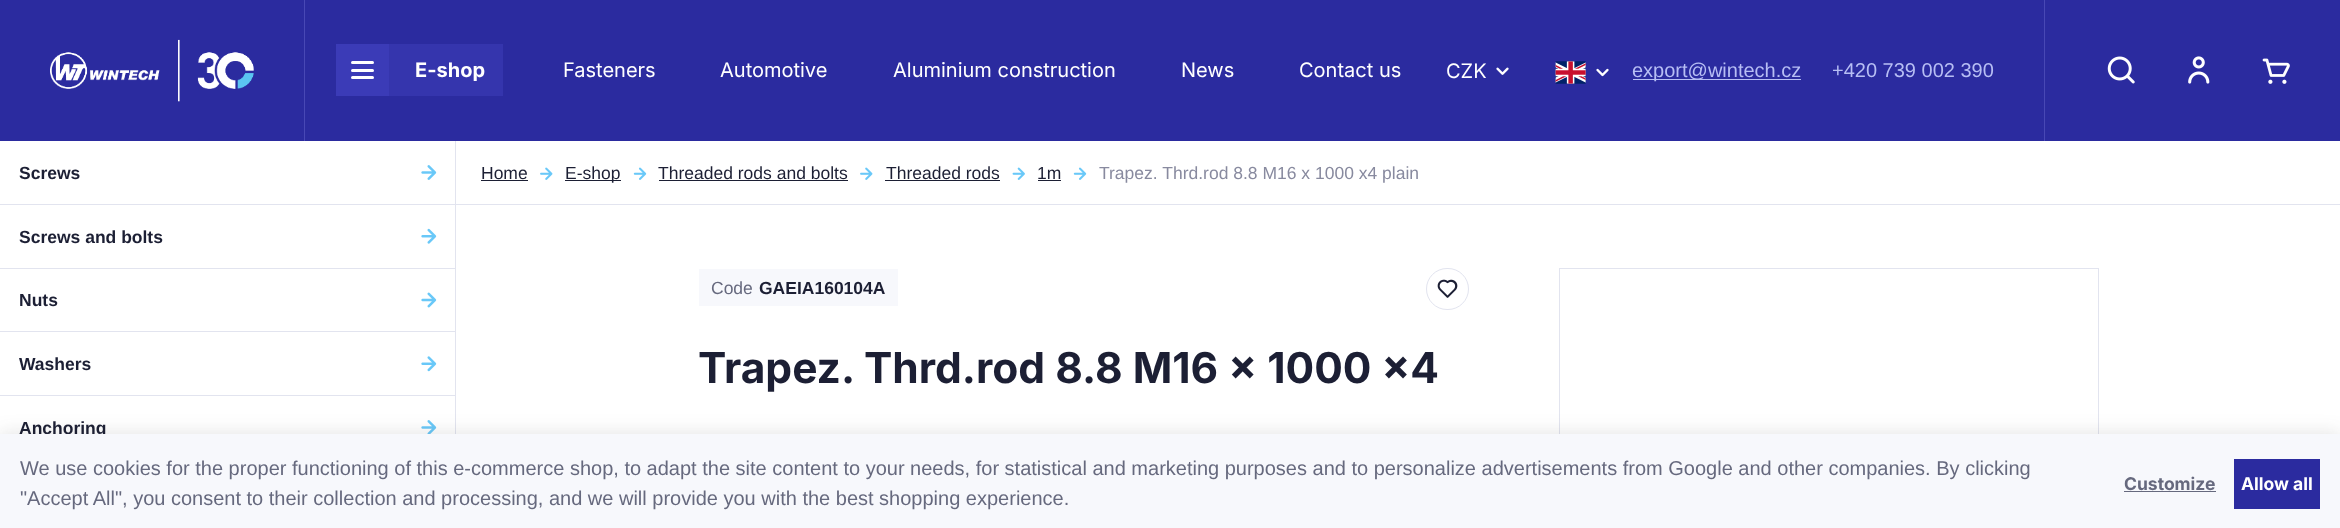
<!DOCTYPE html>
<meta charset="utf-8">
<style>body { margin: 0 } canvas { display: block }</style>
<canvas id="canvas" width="2340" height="528"></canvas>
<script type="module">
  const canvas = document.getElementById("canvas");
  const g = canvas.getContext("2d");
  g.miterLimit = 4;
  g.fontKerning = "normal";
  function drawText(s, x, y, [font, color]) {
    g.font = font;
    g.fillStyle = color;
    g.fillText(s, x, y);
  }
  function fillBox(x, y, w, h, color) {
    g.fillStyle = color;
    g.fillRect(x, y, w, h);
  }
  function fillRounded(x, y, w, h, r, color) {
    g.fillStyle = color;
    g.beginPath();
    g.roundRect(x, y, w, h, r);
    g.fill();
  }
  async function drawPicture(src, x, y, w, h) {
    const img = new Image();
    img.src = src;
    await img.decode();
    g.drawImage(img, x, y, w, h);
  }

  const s1 = ["bold 20px Inter", "#FFFFFF"];
  const s2 = ["20px Inter", "#FFFFFF"];
  const s3 = ["20px Liberation Sans", "#B7BEF4"];
  const s4 = ["bold 17.5px Liberation Sans", "#1C1F34"];
  const s5 = ["17.5px Liberation Sans", "#1C1F34"];
  const s6 = ["17.5px Liberation Sans", "#888A9F"];
  const s7 = ["17.5px Liberation Sans", "#66697E"];
  const s8 = ["bold 42.5px Inter", "#1C1F34"];
  const s9 = ["20px Liberation Sans", "#66697E"];
  const s10 = ["bold 17.5px Inter", "#66697E"];
  const s11 = ["bold 17.5px Inter", "#FFFFFF"];

  fillBox(0, 0, 2340, 528, "#FFFFFF");
  fillBox(0, 0, 2340, 141, "#2B2B9F");
  fillBox(304, 0, 1, 141, "#4848B5");
  await drawPicture("pic1.png", 50, 39, 204, 63);
  fillBox(389, 44, 114, 52, "#3535AD");
  fillBox(336, 44, 53, 52, "#3B3BB7");
  fillRounded(351, 69, 23, 3, 1.5, "#FFFFFF");
  fillRounded(351, 61, 23, 3, 1.5, "#FFFFFF");
  fillRounded(351, 76, 23, 3, 1.5, "#FFFFFF");
  drawText("E-shop", 415, 77, s1);
  drawText("Fasteners", 563, 77, s2);
  drawText("Automotive", 720, 77, s2);
  drawText("Aluminium construction", 893, 77, s2);
  drawText("News", 1181, 77, s2);
  drawText("Contact us", 1299, 77, s2);
  drawText("CZK", 1446, 78, s2);
  await drawPicture("pic2.png", 1496, 67, 13, 8);
  await drawPicture("pic3.png", 1555, 61, 31, 23);
  await drawPicture("pic4.png", 1596, 68, 13, 9);
  fillBox(1633, 79, 168, 1, "#B7BEF4");
  drawText("export@wintech.cz", 1632, 77, s3);
  drawText("+420 739 002 390", 1832, 77, s3);
  fillBox(2044, 0, 1, 141, "#4848B5");
  await drawPicture("pic5.png", 2107, 56, 28, 28);
  await drawPicture("pic6.png", 2188, 56, 22, 28);
  await drawPicture("pic7.png", 2262, 58, 28, 26);
  fillBox(455, 141, 1, 293, "#E2E4EF");
  fillBox(0, 204, 455, 1, "#E2E4EF");
  drawText("Screws", 19, 179, s4);
  await drawPicture("pic8.png", 421, 165, 16, 15);
  fillBox(0, 268, 455, 1, "#E2E4EF");
  drawText("Screws and bolts", 19, 243, s4);
  await drawPicture("pic9.png", 421, 228, 16, 16);
  fillBox(0, 331, 455, 1, "#E2E4EF");
  drawText("Nuts", 19, 306, s4);
  await drawPicture("pic10.png", 421, 292, 16, 16);
  fillBox(0, 395, 455, 1, "#E2E4EF");
  drawText("Washers", 19, 370, s4);
  await drawPicture("pic11.png", 421, 356, 16, 16);
  drawText("Anchoring", 19, 434, s4);
  await drawPicture("pic12.png", 421, 420, 16, 14);
  fillBox(456, 204, 1884, 1, "#E2E4EF");
  drawText("Home", 481, 179, s5);
  fillBox(481, 180, 47, 1, "#1C1F34");
  await drawPicture("pic13.png", 540, 167, 13, 13);
  fillBox(565, 180, 56, 1, "#1C1F34");
  drawText("E-shop", 565, 179, s5);
  await drawPicture("pic14.png", 633, 167, 14, 13);
  drawText("Threaded rods and bolts", 658, 179, s5);
  fillBox(659, 180, 189, 1, "#1C1F34");
  await drawPicture("pic13.png", 860, 167, 13, 13);
  drawText("Threaded rods", 886, 179, s5);
  fillBox(885, 180, 115, 1, "#1C1F34");
  await drawPicture("pic15.png", 1012, 167, 13, 13);
  drawText("1m", 1037, 179, s5);
  fillBox(1038, 180, 23, 1, "#1C1F34");
  await drawPicture("pic14.png", 1073, 167, 14, 13);
  drawText("Trapez. Thrd.rod 8.8 M16 x 1000 x4 plain", 1099, 179, s6);
  fillBox(699, 269, 199, 37, "#F7F8FC");
  drawText("Code", 711, 294, s7);
  drawText("GAEIA160104A", 759, 294, s4);
  g.beginPath();
  g.roundRect(1426.5, 268.5, 42, 41, 20.5);
  g.strokeStyle = "#E2E4EF";
  g.stroke();
  await drawPicture("pic16.png", 1437, 279, 21, 19);
  drawText("Trapez. Thrd.rod 8.8 M16 x 1000 x4", 698, 383, s8);
  g.strokeRect(1559.5, 268.5, 539, 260);
  g.fillStyle = "rgba(55, 55, 55, 0.15)";
  g.filter = "blur(9.5px)";
  g.beginPath();
  g.rect(0, 434, 2340, 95);
  g.fill();
  g.filter = "none";
  fillBox(0, 434, 2340, 94, "#F7F8FC");
  drawText("We use cookies for the proper functioning of this e-commerce shop, to adapt the site content to your needs, for statistical and marketing purposes and to personalize advertisements from Google and other companies. By clicking", 20, 475, s9);
  drawText("\"Accept All\", you consent to their collection and processing, and we will provide you with the best shopping experience.", 20, 505, s9);
  drawText("Customize", 2124, 490, s10);
  fillBox(2124, 491, 92, 1, "#66697E");
  fillBox(2234, 459, 86, 50, "#2B2B9F");
  drawText("Allow all", 2241, 490, s11);
</script>
